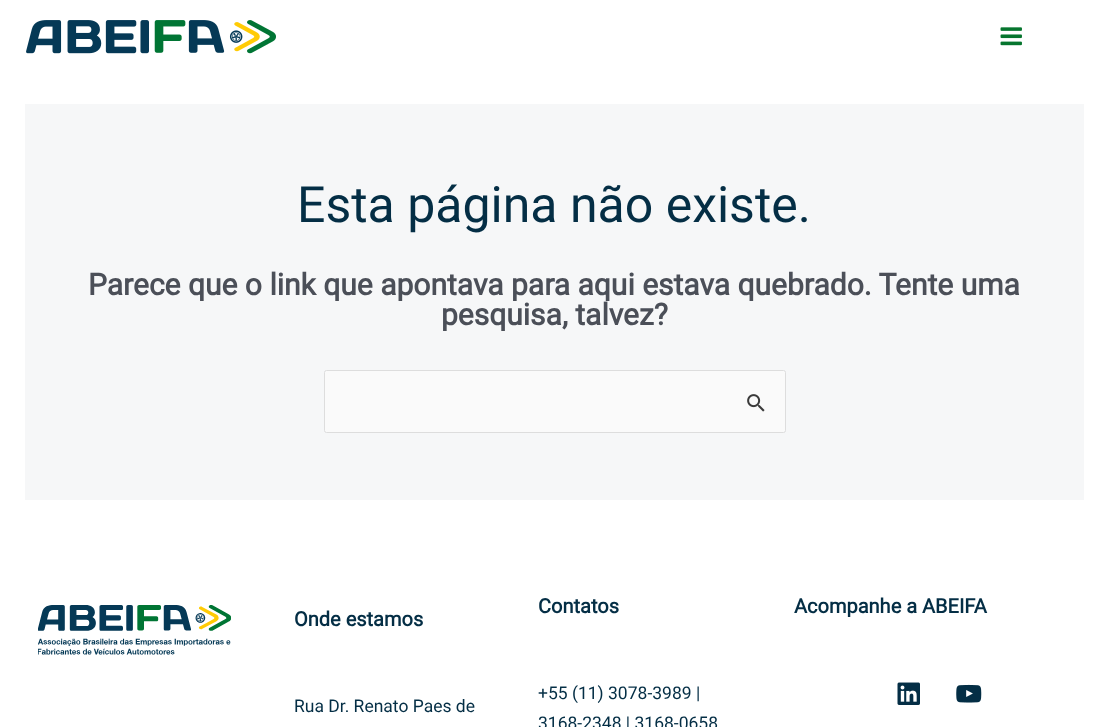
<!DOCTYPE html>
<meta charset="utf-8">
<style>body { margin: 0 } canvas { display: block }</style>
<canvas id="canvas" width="1108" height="727"></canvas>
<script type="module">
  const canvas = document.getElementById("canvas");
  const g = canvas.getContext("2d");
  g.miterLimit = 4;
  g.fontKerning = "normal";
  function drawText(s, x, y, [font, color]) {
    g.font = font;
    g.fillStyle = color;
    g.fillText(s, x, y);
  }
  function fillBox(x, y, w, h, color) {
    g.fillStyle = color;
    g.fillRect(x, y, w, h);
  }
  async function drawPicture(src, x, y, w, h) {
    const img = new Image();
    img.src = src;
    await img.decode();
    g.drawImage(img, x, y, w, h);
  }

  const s1 = ["50px Roboto", "#042E45"];
  const s2 = ["bold 30px Roboto", "#4B4F58"];
  const s3 = ["bold 20px Roboto", "#042E45"];
  const s4 = ["17.5px Roboto", "#042E45"];

  fillBox(0, 0, 1108, 727, "#FFFFFF");
  await drawPicture("pic1.png", 26, 20, 250, 34);
  await drawPicture("pic2.png", 1000, 27, 22, 19);
  fillBox(25, 104, 1059, 396, "#F6F7F8");
  drawText("Esta página não existe.", 297, 222, s1);
  drawText("Parece que o link que apontava para aqui estava quebrado. Tente uma", 88, 295, s2);
  drawText("pesquisa, talvez?", 441, 325, s2);
  g.fillStyle = "#FAFAFA";
  g.beginPath();
  g.roundRect(324.5, 370.5, 461, 62, 2);
  g.fill();
  g.strokeStyle = "#DDDDDD";
  g.stroke();
  await drawPicture("pic3.png", 747, 394, 18, 18);
  await drawPicture("pic4.png", 38, 605, 193, 50);
  drawText("Onde estamos", 294, 626, s3);
  drawText("Rua Dr. Renato Paes de", 294, 712, s4);
  drawText("Contatos", 538, 613, s3);
  drawText("+55 (11) 3078-3989 |", 538, 699, s4);
  drawText("3168-2348 | 3168-0658", 538, 729, s4);
  drawText("Acompanhe a ABEIFA", 794, 613, s3);
  await drawPicture("pic5.png", 897, 682, 23, 23);
  await drawPicture("pic6.png", 956, 684, 26, 19);
</script>
